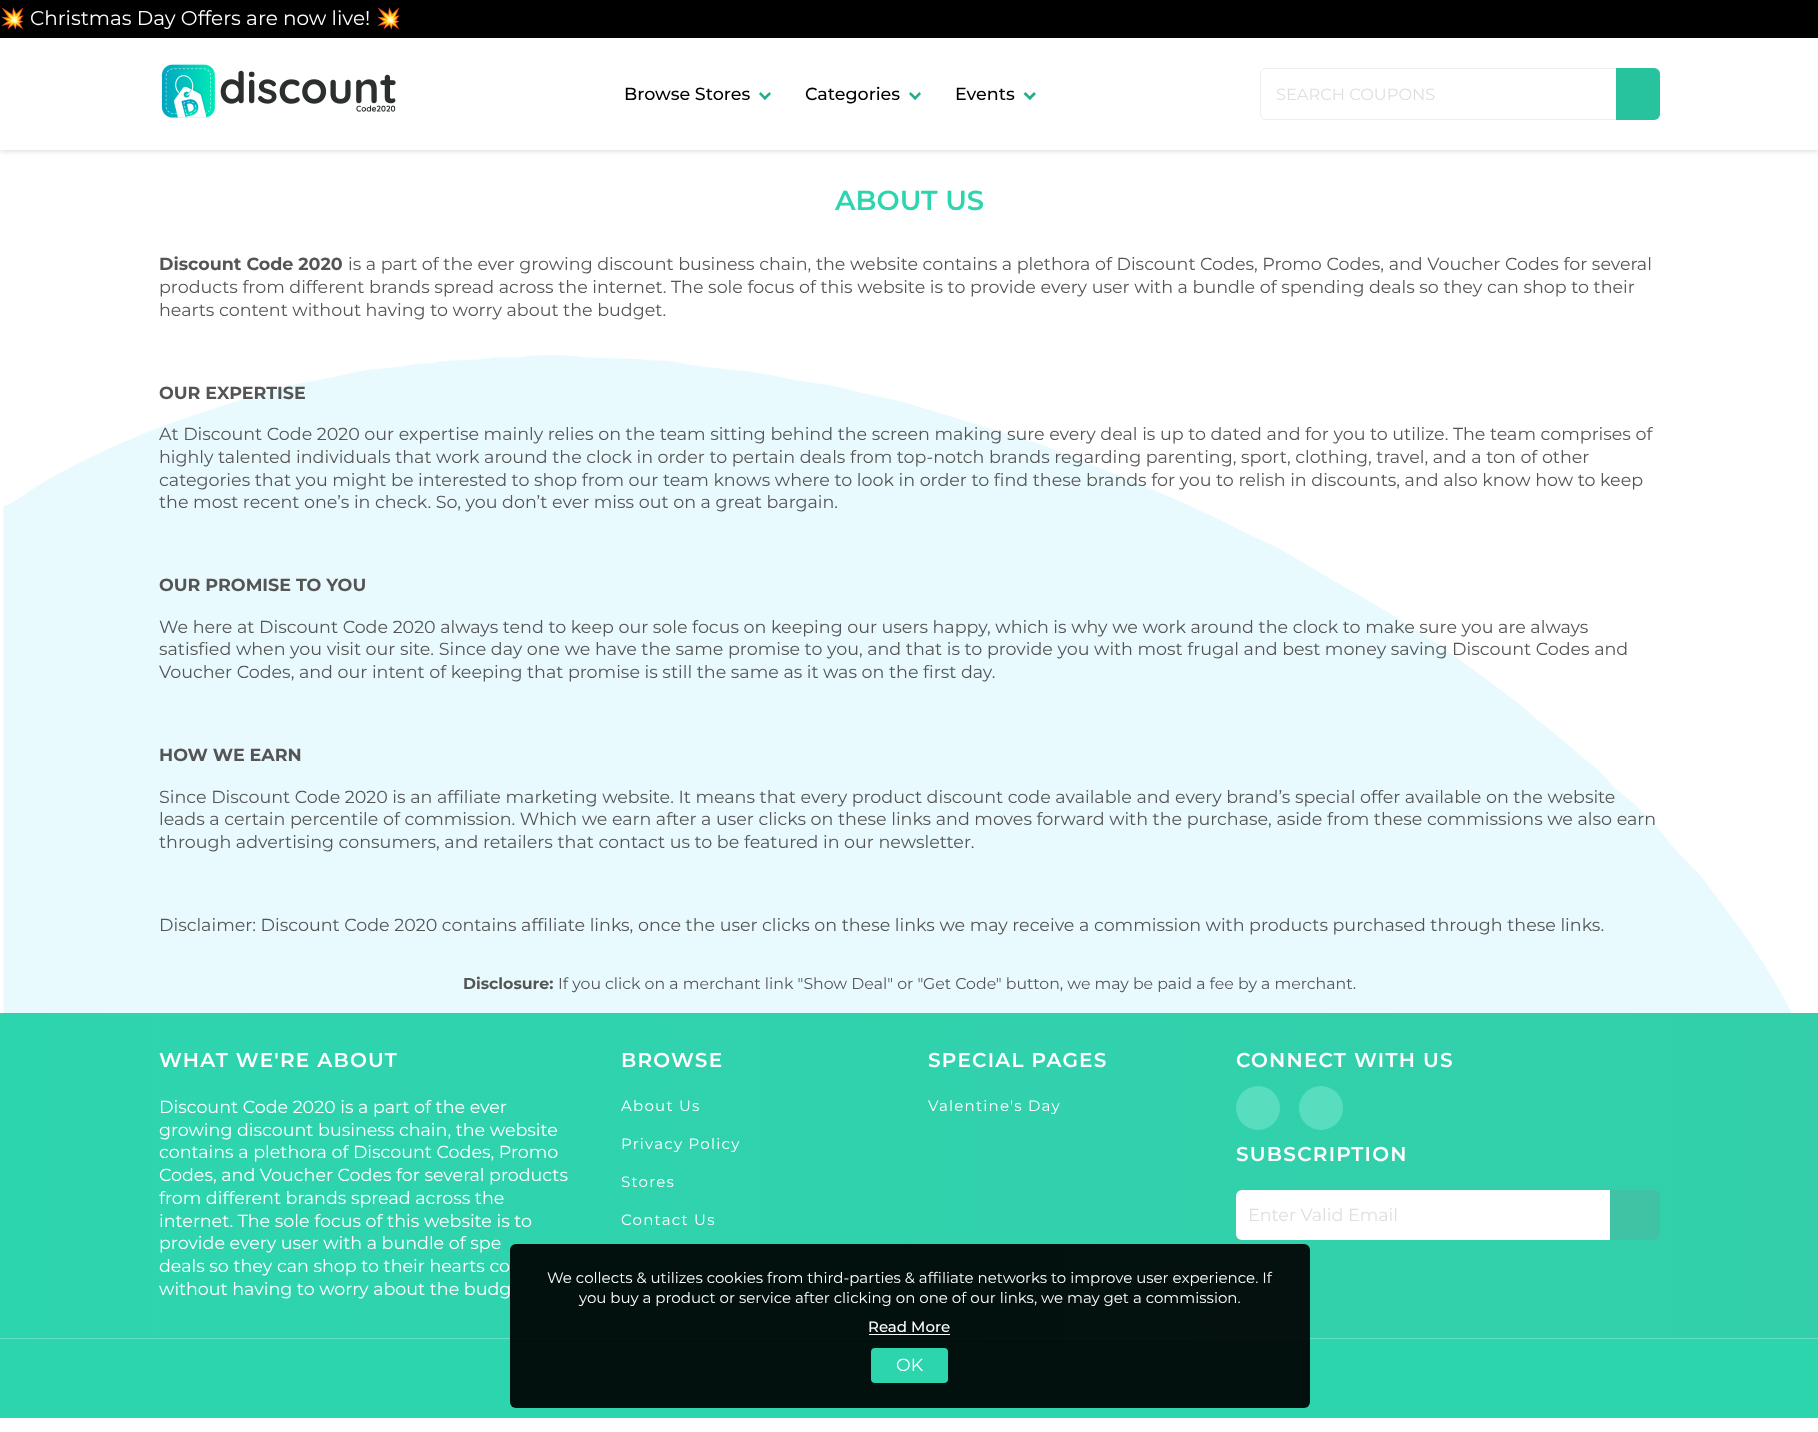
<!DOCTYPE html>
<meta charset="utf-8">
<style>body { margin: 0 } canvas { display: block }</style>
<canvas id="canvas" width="1818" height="1432"></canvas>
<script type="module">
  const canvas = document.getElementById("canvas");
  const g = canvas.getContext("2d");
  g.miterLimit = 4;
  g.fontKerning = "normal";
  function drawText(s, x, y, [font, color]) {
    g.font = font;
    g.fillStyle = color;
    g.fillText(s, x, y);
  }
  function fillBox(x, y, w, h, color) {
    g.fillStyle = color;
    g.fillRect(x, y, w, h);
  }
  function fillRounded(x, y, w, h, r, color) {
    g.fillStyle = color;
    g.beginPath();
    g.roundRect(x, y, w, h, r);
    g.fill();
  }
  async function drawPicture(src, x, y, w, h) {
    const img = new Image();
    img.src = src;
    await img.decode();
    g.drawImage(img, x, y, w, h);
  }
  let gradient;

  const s1 = ["20px Noto Color Emoji", "#FFFFFF"];
  const s2 = ["20px Montserrat", "#FFFFFF"];
  const s3 = ["500 17.5px Montserrat", "#000000"];
  const s4 = ["16.25px Montserrat", "#DDDFDF"];
  const s5 = ["600 27.5px Montserrat", "#2DD5AE"];
  const s6 = ["bold 17.5px Montserrat", "#555555"];
  const s7 = ["17.5px Montserrat", "#555555"];
  const s8 = ["bold 15.75px Montserrat", "#555555"];
  const s9 = ["15.75px Montserrat", "#555555"];
  const s10 = ["600 20px Montserrat", "#FFFFFF"];
  const s11 = ["17.5px Montserrat", "#FFFFFF"];
  const s12 = ["15px Montserrat", "#FFFFFF"];
  const s13 = ["17.5px Montserrat", "#DDDFDF"];
  const s14 = ["500 15px Montserrat", "#FFFFFF"];

  fillBox(0, 0, 1818, 1432, "#FFFFFF");
  await drawPicture("pic1.png", 3, 355, 1789, 658);
  fillBox(0, 0, 1818, 38, "#000000");
  drawText("💥", 0, 25, s1);
  drawText("Christmas Day Offers are now live!", 30, 25, s2);
  drawText("💥", 376, 25, s1);
  g.save();
  g.beginPath();
  g.moveTo(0, 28);
  g.lineTo(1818, 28);
  g.lineTo(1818, 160);
  g.lineTo(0, 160);
  g.closePath();
  g.moveTo(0, 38);
  g.lineTo(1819, 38);
  g.lineTo(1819, 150);
  g.lineTo(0, 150);
  g.closePath();
  g.clip("evenodd");
  g.fillStyle = "rgba(0, 0, 0, 0.2)";
  g.filter = "blur(3px)";
  g.beginPath();
  g.rect(0, 38, 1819, 112);
  g.fill();
  g.filter = "none";
  g.restore();
  await drawPicture("pic2.png", 161, 64, 235, 54);
  drawText("Browse Stores", 624, 100, s3);
  g.fillStyle = "#23AD8C";
  g.beginPath();
  g.moveTo(769.5, 92);
  g.lineTo(771, 94);
  g.lineTo(765, 100);
  g.lineTo(763, 98);
  g.closePath();
  g.fill();
  g.beginPath();
  g.moveTo(760.5, 92);
  g.lineTo(766.5, 98);
  g.lineTo(765, 100);
  g.lineTo(759, 94);
  g.closePath();
  g.fill();
  drawText("Categories", 805, 100, s3);
  g.fillStyle = "#23AD8C";
  g.beginPath();
  g.moveTo(919.5, 92);
  g.lineTo(921, 94);
  g.lineTo(915, 100);
  g.lineTo(913.5, 98);
  g.closePath();
  g.fill();
  g.beginPath();
  g.moveTo(910.5, 92);
  g.lineTo(917, 98);
  g.lineTo(915, 100);
  g.lineTo(909, 94);
  g.closePath();
  g.fill();
  drawText("Events", 955, 100, s3);
  g.fillStyle = "#23AD8C";
  g.beginPath();
  g.moveTo(1034, 92);
  g.lineTo(1036, 94);
  g.lineTo(1030, 100);
  g.lineTo(1028, 98);
  g.closePath();
  g.fill();
  g.beginPath();
  g.moveTo(1025.5, 92);
  g.lineTo(1031.5, 98);
  g.lineTo(1030, 100);
  g.lineTo(1023.5, 94);
  g.closePath();
  g.fill();
  g.beginPath();
  g.roundRect(1260.5, 68.5, 399, 51, 5.5);
  g.strokeStyle = "#EFEFEF";
  g.stroke();
  drawText("SEARCH COUPONS", 1276, 100, s4);
  g.fillStyle = "#27C29E";
  g.beginPath();
  g.roundRect(1616, 68, 44, 52, [0, 6, 6, 0]);
  g.fill();
  drawText("ABOUT US", 835, 210, s5);
  drawText("Discount Code 2020", 159, 270, s6);
  drawText("is a part of the ever growing discount business chain, the website contains a plethora of Discount Codes, Promo Codes, and Voucher Codes for several", 348, 270, s7);
  drawText("products from different brands spread across the internet. The sole focus of this website is to provide every user with a bundle of spending deals so they can shop to their", 159, 293, s7);
  drawText("hearts content without having to worry about the budget.", 159, 316, s7);
  drawText("OUR EXPERTISE", 159, 399, s6);
  drawText("At Discount Code 2020 our expertise mainly relies on the team sitting behind the screen making sure every deal is up to dated and for you to utilize. The team comprises of", 159, 440, s7);
  drawText("highly talented individuals that work around the clock in order to pertain deals from top-notch brands regarding parenting, sport, clothing, travel, and a ton of other", 159, 463, s7);
  drawText("categories that you might be interested to shop from our team knows where to look in order to find these brands for you to relish in discounts, and also know how to keep", 159, 486, s7);
  drawText("the most recent one’s in check. So, you don’t ever miss out on a great bargain.", 159, 508, s7);
  drawText("OUR PROMISE TO YOU", 159, 591, s6);
  drawText("We here at Discount Code 2020 always tend to keep our sole focus on keeping our users happy, which is why we work around the clock to make sure you are always", 159, 633, s7);
  drawText("satisfied when you visit our site. Since day one we have the same promise to you, and that is to provide you with most frugal and best money saving Discount Codes and", 159, 655, s7);
  drawText("Voucher Codes, and our intent of keeping that promise is still the same as it was on the first day.", 159, 678, s7);
  drawText("HOW WE EARN", 159, 761, s6);
  drawText("Since Discount Code 2020 is an affiliate marketing website. It means that every product discount code available and every brand’s special offer available on the website", 159, 803, s7);
  drawText("leads a certain percentile of commission. Which we earn after a user clicks on these links and moves forward with the purchase, aside from these commissions we also earn", 159, 825, s7);
  drawText("through advertising consumers, and retailers that contact us to be featured in our newsletter.", 159, 848, s7);
  drawText("Disclaimer: Discount Code 2020 contains affiliate links, once the user clicks on these links we may receive a commission with products purchased through these links.", 159, 931, s7);
  drawText("Disclosure:", 463, 989, s8);
  drawText("If you click on a merchant link \"Show Deal\" or \"Get Code\" button, we may be paid a fee by a merchant.", 558, 989, s9);
  gradient = g.createLinearGradient(0, 1215, 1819, 1215);
  gradient.addColorStop(0, "#2DD5AE");
  gradient.addColorStop(1, "#33CFAB");
  g.fillStyle = gradient;
  g.fillRect(0, 1013, 1818, 325);
  g.letterSpacing = "1.25px";
  drawText("WHAT WE'RE ABOUT", 159, 1067, s10);
  g.letterSpacing = "0px";
  drawText("Discount Code 2020 is a part of the ever", 159, 1113, s11);
  drawText("growing discount business chain, the website", 159, 1136, s11);
  drawText("contains a plethora of Discount Codes, Promo", 159, 1158, s11);
  drawText("Codes, and Voucher Codes for several products", 159, 1181, s11);
  drawText("from different brands spread across the", 159, 1204, s11);
  drawText("internet. The sole focus of this website is to", 159, 1227, s11);
  drawText("provide every user with a bundle of spe", 159, 1249, s11);
  drawText("deals so they can shop to their hearts co", 159, 1272, s11);
  drawText("without having to worry about the budg", 159, 1295, s11);
  g.letterSpacing = "1.25px";
  drawText("BROWSE", 621, 1067, s10);
  drawText("About Us", 621, 1111, s12);
  drawText("Privacy Policy", 621, 1149, s12);
  drawText("Stores", 621, 1187, s12);
  drawText("Contact Us", 621, 1225, s12);
  drawText("SPECIAL PAGES", 928, 1067, s10);
  drawText("Valentine's Day", 928, 1111, s12);
  drawText("CONNECT WITH US", 1236, 1067, s10);
  g.fillStyle = "#58DEBE";
  g.beginPath();
  g.arc(1258, 1108, 22, 0, Math.PI * 2);
  g.fill();
  g.beginPath();
  g.arc(1321, 1108, 22, 0, Math.PI * 2);
  g.fill();
  drawText("SUBSCRIPTION", 1236, 1161, s10);
  g.beginPath();
  g.roundRect(1236, 1190, 374, 50, [6, 0, 0, 6]);
  g.fill();
  g.letterSpacing = "0px";
  drawText("Enter Valid Email", 1248, 1221, s13);
  g.fillStyle = "#40C2A4";
  g.beginPath();
  g.roundRect(1610, 1190, 50, 50, [0, 6, 6, 0]);
  g.fill();
  fillBox(0, 1339, 1818, 79, "#2DD5AE");
  fillBox(0, 1338, 1818, 1, "#62E0C2");
  fillRounded(510, 1244, 800, 164, 6, "rgba(0, 0, 0, 0.92)");
  drawText("We collects & utilizes cookies from third-parties & affiliate networks to improve user experience. If", 547, 1283, s12);
  drawText("you buy a product or service after clicking on one of our links, we may get a commission.", 579, 1303, s12);
  drawText("Read More", 868, 1332, s14);
  fillBox(869, 1334, 81, 1, "#FFFFFF");
  fillRounded(871, 1348, 77, 35, 4, "#2DD5AE");
  drawText("OK", 896, 1371, s11);
</script>
